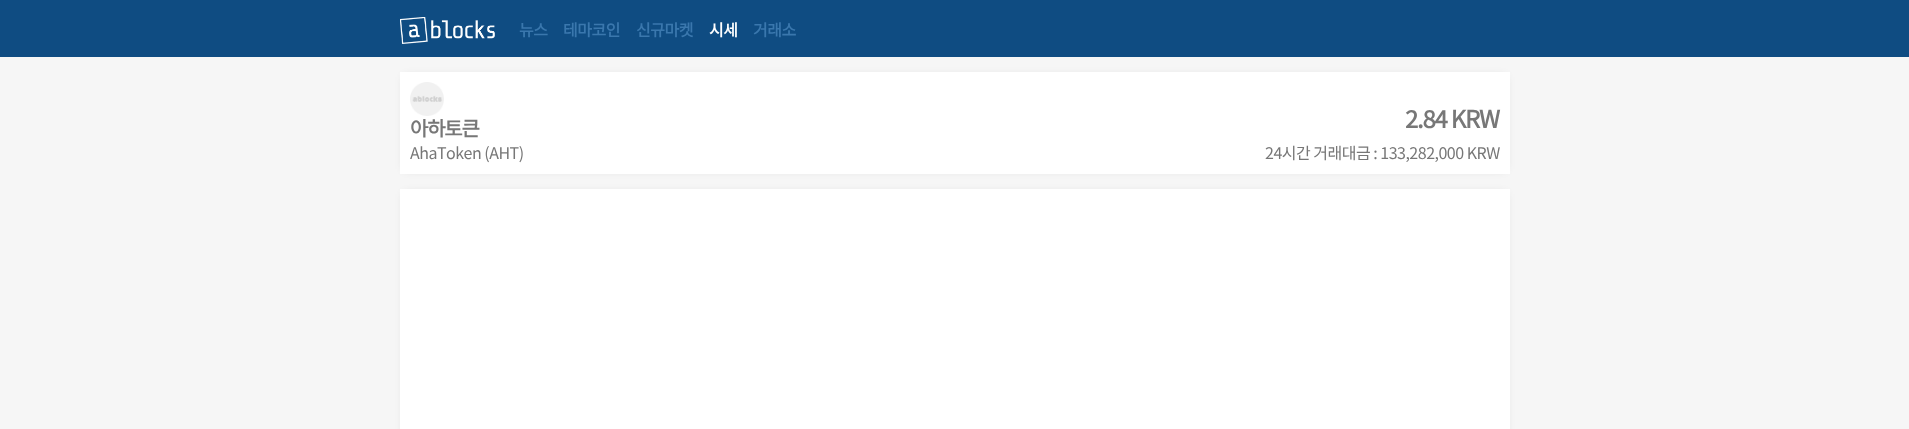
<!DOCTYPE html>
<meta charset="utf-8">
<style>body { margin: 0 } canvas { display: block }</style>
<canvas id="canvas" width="1909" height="429"></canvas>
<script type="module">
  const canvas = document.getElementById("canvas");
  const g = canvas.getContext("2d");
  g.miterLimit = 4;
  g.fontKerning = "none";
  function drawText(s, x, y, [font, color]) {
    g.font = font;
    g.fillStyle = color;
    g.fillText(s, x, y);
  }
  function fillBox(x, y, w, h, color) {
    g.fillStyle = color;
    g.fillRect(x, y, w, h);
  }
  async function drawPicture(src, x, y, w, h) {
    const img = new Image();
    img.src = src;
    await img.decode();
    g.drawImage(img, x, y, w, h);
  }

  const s1 = ["bold 16px Noto Sans KR", "#3A77AD"];
  const s2 = ["bold 16px Noto Sans KR", "#FFFFFF"];
  const s3 = ["bold 20px Noto Sans KR", "#777777"];
  const s4 = ["100 16px Noto Sans KR", "#777777"];
  const s5 = ["bold 24px Noto Sans KR", "#777777"];

  fillBox(0, 0, 1909, 429, "#F6F6F6");
  fillBox(0, 0, 1909, 57, "#0F4C82");
  await drawPicture("pic1.png", 400, 17, 95, 27);
  g.letterSpacing = "-0.5px";
  drawText("뉴스", 519, 36, s1);
  drawText("테마코인", 563, 36, s1);
  drawText("신규마켓", 636, 36, s1);
  drawText("시세", 709, 36, s2);
  drawText("거래소", 753, 36, s1);
  g.fillStyle = "rgba(0, 0, 0, 0.18)";
  g.filter = "blur(5px)";
  g.beginPath();
  g.rect(405, 77, 1100, 92);
  g.fill();
  g.filter = "none";
  fillBox(400, 72, 1110, 102, "#FFFFFF");
  await drawPicture("pic2.png", 410, 82, 34, 34);
  g.letterSpacing = "-1.25px";
  drawText("아하토큰", 410, 136, s3);
  g.letterSpacing = "-0.5px";
  drawText("AhaToken (AHT)", 410, 159, s4);
  g.letterSpacing = "-1.25px";
  drawText("2.84 KRW", 1405, 128, s5);
  g.letterSpacing = "-0.5px";
  drawText("24시간 거래대금 : 133,282,000 KRW", 1265, 159, s4);
  g.fillStyle = "rgba(0, 0, 0, 0.18)";
  g.filter = "blur(5px)";
  g.beginPath();
  g.rect(405, 194, 1100, 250);
  g.fill();
  g.filter = "none";
  fillBox(400, 189, 1110, 240, "#FFFFFF");
</script>
